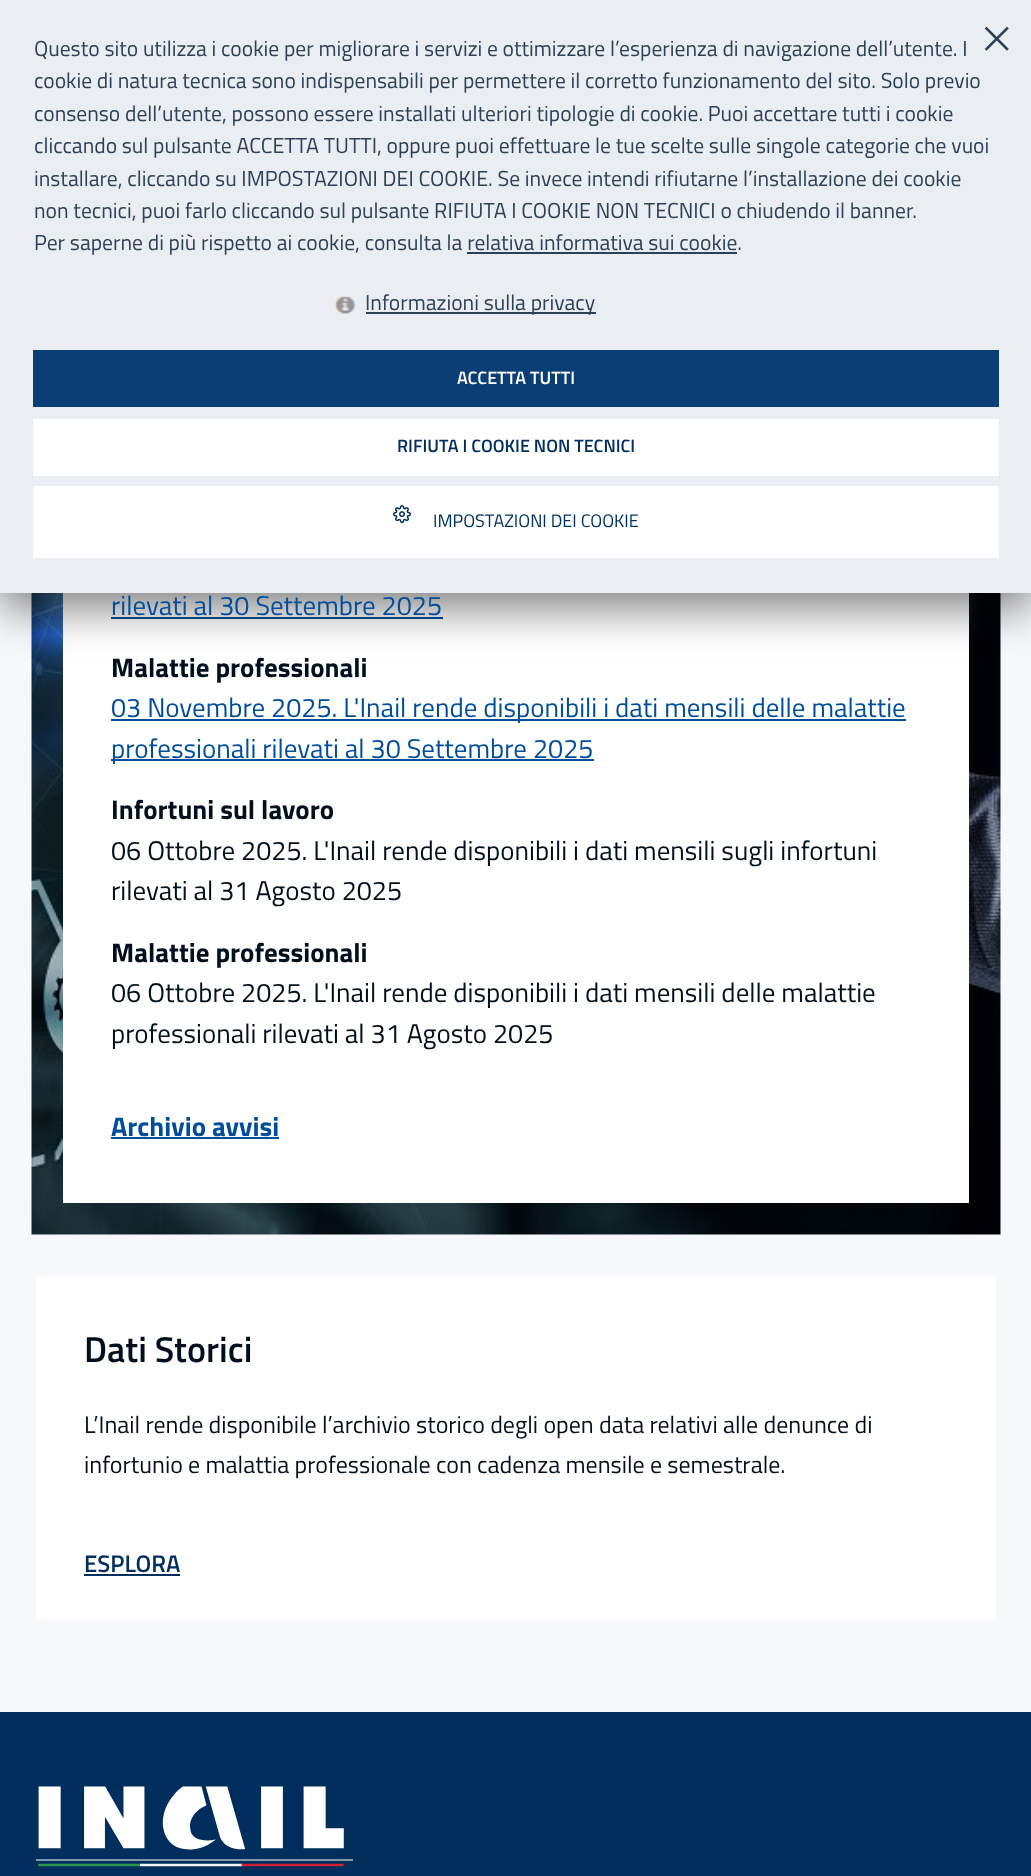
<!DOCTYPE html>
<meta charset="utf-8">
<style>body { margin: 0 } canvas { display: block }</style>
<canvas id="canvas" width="1031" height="1876"></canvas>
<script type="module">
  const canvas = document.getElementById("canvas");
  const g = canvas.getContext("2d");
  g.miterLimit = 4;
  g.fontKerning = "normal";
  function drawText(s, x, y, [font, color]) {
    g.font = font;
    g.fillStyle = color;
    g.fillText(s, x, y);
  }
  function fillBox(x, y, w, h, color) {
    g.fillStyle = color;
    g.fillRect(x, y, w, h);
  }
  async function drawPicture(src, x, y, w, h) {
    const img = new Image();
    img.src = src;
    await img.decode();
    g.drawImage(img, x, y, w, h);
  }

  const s1 = ["21.6px Titillium Web", "#2D4156"];
  const s2 = ["600 18px Titillium Web", "#FFFFFF"];
  const s3 = ["600 18px Titillium Web", "#012E5D"];
  const s4 = ["18px Titillium Web", "#012E5D"];
  const s5 = ["27px Titillium Web", "#004E9B"];
  const s6 = ["bold 27px Titillium Web", "#01101E"];
  const s7 = ["27px Titillium Web", "#01101E"];
  const s8 = ["bold 27px Titillium Web", "#004E9B"];
  const s9 = ["600 36px Titillium Web", "#01101E"];
  const s10 = ["24px Titillium Web", "#01101E"];
  const s11 = ["600 24px Titillium Web", "#012E5D"];

  fillBox(0, 0, 1031, 1876, "#F7F8FC");
  fillBox(32, 593, 969, 642, "#FFFFFF");
  await drawPicture("pic4.png", 31, 593, 970, 642);
  fillBox(63, 593, 906, 610, "#FFFFFF");
  fillBox(111, 617, 332, 2, "#004E9B");
  g.fillStyle = "rgba(0, 0, 0, 0.5)";
  g.filter = "blur(22.5px)";
  g.beginPath();
  g.rect(0, 15, 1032, 593);
  g.fill();
  g.filter = "none";
  fillBox(0, 0, 1031, 593, "#EAEDF2");
  drawText("Questo sito utilizza i cookie per migliorare i servizi e ottimizzare l’esperienza di navigazione dell’utente. I", 34, 56, s1);
  drawText("cookie di natura tecnica sono indispensabili per permettere il corretto funzionamento del sito. Solo previo", 34, 88, s1);
  drawText("consenso dell’utente, possono essere installati ulteriori tipologie di cookie. Puoi accettare tutti i cookie", 34, 121, s1);
  drawText("cliccando sul pulsante ACCETTA TUTTI, oppure puoi effettuare le tue scelte sulle singole categorie che vuoi", 34, 153, s1);
  drawText("installare, cliccando su IMPOSTAZIONI DEI COOKIE. Se invece intendi rifiutarne l’installazione dei cookie", 34, 186, s1);
  drawText("non tecnici, puoi farlo cliccando sul pulsante RIFIUTA I COOKIE NON TECNICI o chiudendo il banner.", 34, 218, s1);
  drawText("Per saperne di più rispetto ai cookie, consulta la relativa informativa sui cookie.", 34, 250, s1);
  fillBox(467, 252, 270, 2, "#2D4156");
  await drawPicture("pic1.png", 984, 26, 25, 25);
  await drawPicture("pic2.png", 334, 296, 22, 18);
  fillBox(366, 312, 230, 2, "#2D4156");
  drawText("Informazioni sulla privacy", 365, 310, s1);
  fillBox(33, 350, 966, 57, "#0B3E74");
  drawText("ACCETTA TUTTI", 457, 384, s2);
  fillBox(33, 419, 966, 57, "#FFFFFF");
  drawText("RIFIUTA I COOKIE NON TECNICI", 397, 452, s3);
  fillBox(33, 486, 966, 72, "#FFFFFF");
  await drawPicture("pic3.png", 393, 505, 18, 19);
  drawText("IMPOSTAZIONI DEI COOKIE", 433, 527, s4);
  drawText("rilevati al 30 Settembre 2025", 111, 615, s5);
  drawText("Malattie professionali", 111, 677, s6);
  fillBox(111, 719, 795, 2, "#004E9B");
  drawText("03 Novembre 2025. L'Inail rende disponibili i dati mensili delle malattie", 111, 717, s5);
  fillBox(111, 759, 483, 2, "#004E9B");
  drawText("professionali rilevati al 30 Settembre 2025", 111, 758, s5);
  drawText("Infortuni sul lavoro", 111, 819, s6);
  drawText("06 Ottobre 2025. L'Inail rende disponibili i dati mensili sugli infortuni", 111, 860, s7);
  drawText("rilevati al 31 Agosto 2025", 111, 900, s7);
  drawText("Malattie professionali", 111, 962, s6);
  drawText("06 Ottobre 2025. L'Inail rende disponibili i dati mensili delle malattie", 111, 1002, s7);
  drawText("professionali rilevati al 31 Agosto 2025", 111, 1043, s7);
  drawText("Archivio avvisi", 111, 1136, s8);
  fillBox(111, 1137, 168, 2, "#004E9B");
  fillBox(36, 1277, 960, 342, "#FFFFFF");
  drawText("Dati Storici", 84, 1362, s9);
  drawText("L’Inail rende disponibile l’archivio storico degli open data relativi alle denunce di", 84, 1433, s10);
  drawText("infortunio e malattia professionale con cadenza mensile e semestrale.", 84, 1473, s10);
  drawText("ESPLORA", 84, 1572, s11);
  fillBox(84, 1574, 96, 2, "#012E5D");
  fillBox(0, 1712, 1031, 164, "#012E5D");
  fillBox(36, 1859, 317, 2, "#8097AE");
  await drawPicture("pic5.png", 38, 1786, 306, 81);
</script>
